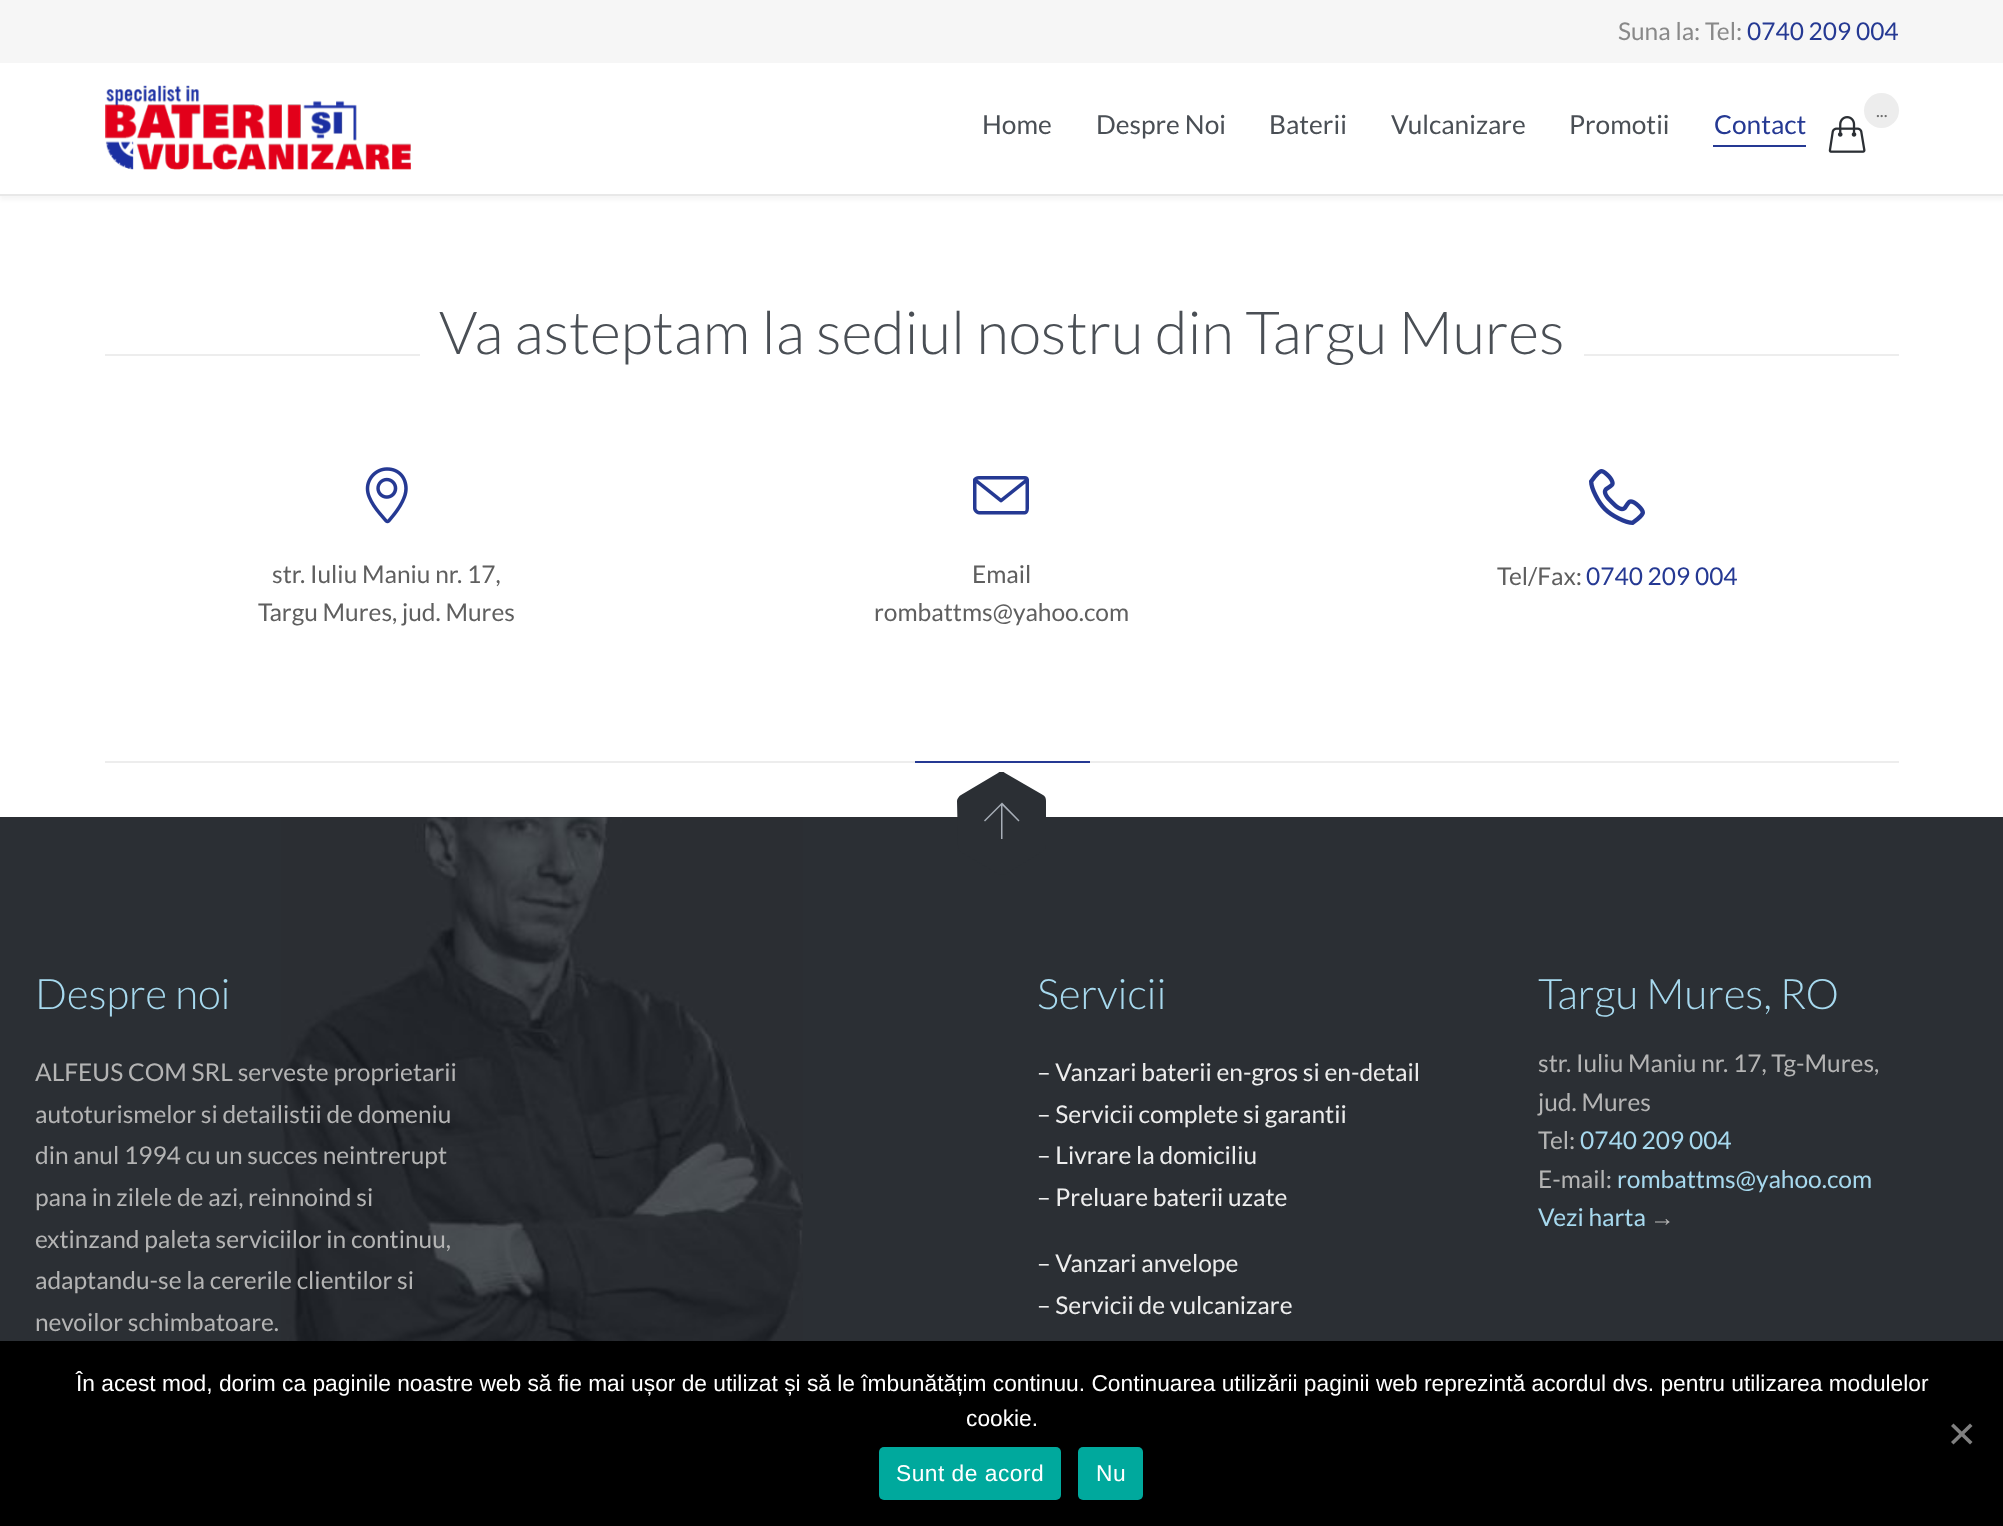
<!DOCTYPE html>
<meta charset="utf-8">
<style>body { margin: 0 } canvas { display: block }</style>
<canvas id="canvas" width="2003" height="1526"></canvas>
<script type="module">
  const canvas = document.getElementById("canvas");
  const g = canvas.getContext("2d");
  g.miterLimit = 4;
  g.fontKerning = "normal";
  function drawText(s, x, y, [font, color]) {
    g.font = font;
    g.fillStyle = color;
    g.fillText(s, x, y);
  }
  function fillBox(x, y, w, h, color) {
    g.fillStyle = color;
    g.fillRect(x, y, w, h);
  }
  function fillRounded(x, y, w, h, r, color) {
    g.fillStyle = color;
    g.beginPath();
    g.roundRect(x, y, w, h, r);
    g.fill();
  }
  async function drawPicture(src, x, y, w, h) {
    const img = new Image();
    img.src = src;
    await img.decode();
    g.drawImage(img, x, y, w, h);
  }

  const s1 = ["24.5px Lato", "#898989"];
  const s2 = ["24.5px Lato", "#253993"];
  const s3 = ["26.25px Lato", "#4A4F55"];
  const s4 = ["26.25px Lato", "#253993"];
  const s5 = ["18px Lato", "#6E6E6E"];
  const s6 = ["300 59.5px Lato", "#4A4F55"];
  const s7 = ["24.5px Lato", "#5F5F5F"];
  const s8 = ["300 42px Lato", "#A7D9EE"];
  const s9 = ["24.5px Lato", "#B4B4B4"];
  const s10 = ["24.5px Lato", "#EDEDED"];
  const s11 = ["24.5px Lato", "#A7D9EE"];
  const s12 = ["24.5px Liberation Serif", "#B4B4B4"];
  const s13 = ["22.75px Liberation Sans", "#FFFFFF"];

  fillBox(0, 0, 2003, 1526, "#FFFFFF");
  g.fillStyle = "rgba(0, 0, 0, 0.04)";
  g.filter = "blur(2px)";
  g.beginPath();
  g.rect(0, 4, 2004, 196);
  g.fill();
  g.filter = "none";
  fillBox(0, 63, 2003, 131, "#FFFFFF");
  fillBox(0, 194, 2003, 2, "#E8E8E8");
  fillBox(0, 0, 2003, 63, "#F6F6F6");
  drawText("Suna la: Tel:", 1618, 40, s1);
  drawText("0740 209 004", 1747, 40, s2);
  await drawPicture("pic1.png", 105, 85, 306, 85);
  drawText("Home", 982, 134, s3);
  drawText("Despre Noi", 1096, 134, s3);
  drawText("Baterii", 1269, 134, s3);
  drawText("Vulcanizare", 1391, 134, s3);
  drawText("Promotii", 1569, 134, s3);
  fillBox(1713, 145, 93, 2, "#253993");
  drawText("Contact", 1714, 134, s4);
  await drawPicture("pic2.png", 1828, 116, 38, 37);
  g.fillStyle = "#EDEDED";
  g.beginPath();
  g.arc(1881.5, 110.5, 17.5, 0, Math.PI * 2);
  g.fill();
  drawText("...", 1876, 117, s5);
  fillBox(105, 354, 315, 2, "#EDEDED");
  drawText("Va asteptam la sediul nostru din Targu Mures", 439, 354, s6);
  fillBox(1584, 354, 315, 2, "#EDEDED");
  await drawPicture("pic3.png", 365, 467, 43, 57);
  drawText("str. Iuliu Maniu nr. 17,", 272, 583, s7);
  drawText("Targu Mures, jud. Mures", 258, 621, s7);
  await drawPicture("pic4.png", 973, 476, 56, 39);
  drawText("Email", 972, 583, s7);
  drawText("rombattms@yahoo.com", 874, 621, s7);
  await drawPicture("pic5.png", 1589, 469, 56, 56);
  drawText("Tel/Fax:", 1497, 585, s7);
  drawText("0740 209 004", 1586, 585, s2);
  fillBox(105, 761, 1794, 2, "#EDEDED");
  fillBox(915, 761, 175, 2, "#253993");
  fillBox(0, 817, 2003, 524, "#2B2F34");
  await drawPicture("pic6.png", 281, 817, 522, 524);
  g.save();
  g.beginPath();
  g.rect(954, 772, 96, 103);
  g.clip();
  g.beginPath();
  g.moveTo(1002, 875);
  g.lineTo(998, 874);
  g.lineTo(961, 852);
  g.bezierCurveTo(959, 850, 958, 848, 958, 845);
  g.lineTo(957, 801);
  g.bezierCurveTo(957, 799, 959, 796, 961, 795);
  g.lineTo(998, 773);
  g.bezierCurveTo(1000, 771, 1003, 771, 1005, 773);
  g.lineTo(1043, 795);
  g.bezierCurveTo(1045, 796, 1046, 798, 1046, 801);
  g.lineTo(1046, 845);
  g.bezierCurveTo(1046, 848, 1045, 850, 1043, 851);
  g.lineTo(1006, 874);
  g.closePath();
  g.fill();
  g.restore();
  g.fillStyle = "#A7AEB7";
  g.beginPath();
  g.moveTo(1003, 803.5);
  g.lineTo(1019.5, 820.5);
  g.lineTo(1018.5, 821.5);
  g.lineTo(1002.5, 805.5);
  g.lineTo(1002.5, 839);
  g.lineTo(1001, 839);
  g.lineTo(1001, 805.5);
  g.lineTo(985, 821.5);
  g.lineTo(984, 820.5);
  g.lineTo(1002, 802.5);
  g.closePath();
  g.fill();
  drawText("Despre noi", 35, 1009, s8);
  drawText("ALFEUS COM SRL serveste proprietarii", 35, 1081, s9);
  drawText("autoturismelor si detailistii de domeniu", 35, 1123, s9);
  drawText("din anul 1994 cu un succes neintrerupt", 35, 1164, s9);
  drawText("pana in zilele de azi, reinnoind si", 35, 1206, s9);
  drawText("extinzand paleta serviciilor in continuu,", 35, 1248, s9);
  drawText("adaptandu-se la cererile clientilor si", 35, 1289, s9);
  drawText("nevoilor schimbatoare.", 35, 1331, s9);
  drawText("Servicii", 1037, 1009, s8);
  drawText("– Vanzari baterii en-gros si en-detail", 1037, 1081, s10);
  drawText("– Servicii complete si garantii", 1037, 1123, s10);
  drawText("– Livrare la domiciliu", 1037, 1164, s10);
  drawText("– Preluare baterii uzate", 1037, 1206, s10);
  drawText("– Vanzari anvelope", 1037, 1272, s10);
  drawText("– Servicii de vulcanizare", 1037, 1314, s10);
  drawText("Targu Mures, RO", 1538, 1009, s8);
  drawText("str. Iuliu Maniu nr. 17, Tg-Mures,", 1538, 1072, s9);
  drawText("jud. Mures", 1538, 1111, s9);
  drawText("Tel:", 1538, 1149, s9);
  drawText("0740 209 004", 1580, 1149, s11);
  drawText("E-mail:", 1538, 1188, s9);
  drawText("rombattms@yahoo.com", 1617, 1188, s11);
  drawText("Vezi harta", 1538, 1226, s11);
  drawText("→", 1650, 1226, s12);
  fillBox(0, 1341, 2003, 185, "#000000");
  drawText("În acest mod, dorim ca paginile noastre web să fie mai ușor de utilizat și să le îmbunătățim continuu. Continuarea utilizării paginii web reprezintă acordul dvs. pentru utilizarea modulelor", 76, 1391, s13);
  drawText("cookie.", 966, 1426, s13);
  g.fillStyle = "#808080";
  g.beginPath();
  g.moveTo(1970, 1423.5);
  g.lineTo(1972.5, 1426);
  g.lineTo(1953.5, 1444.5);
  g.lineTo(1951, 1442);
  g.closePath();
  g.fill();
  g.beginPath();
  g.moveTo(1951, 1426);
  g.lineTo(1953.5, 1423.5);
  g.lineTo(1972.5, 1442);
  g.lineTo(1970, 1444.5);
  g.closePath();
  g.fill();
  fillRounded(879, 1447, 182, 53, 5, "#00A99D");
  g.letterSpacing = "0.5px";
  drawText("Sunt de acord", 896, 1481, s13);
  fillRounded(1078, 1447, 65, 53, 5, "#00A99D");
  drawText("Nu", 1096, 1481, s13);
</script>
